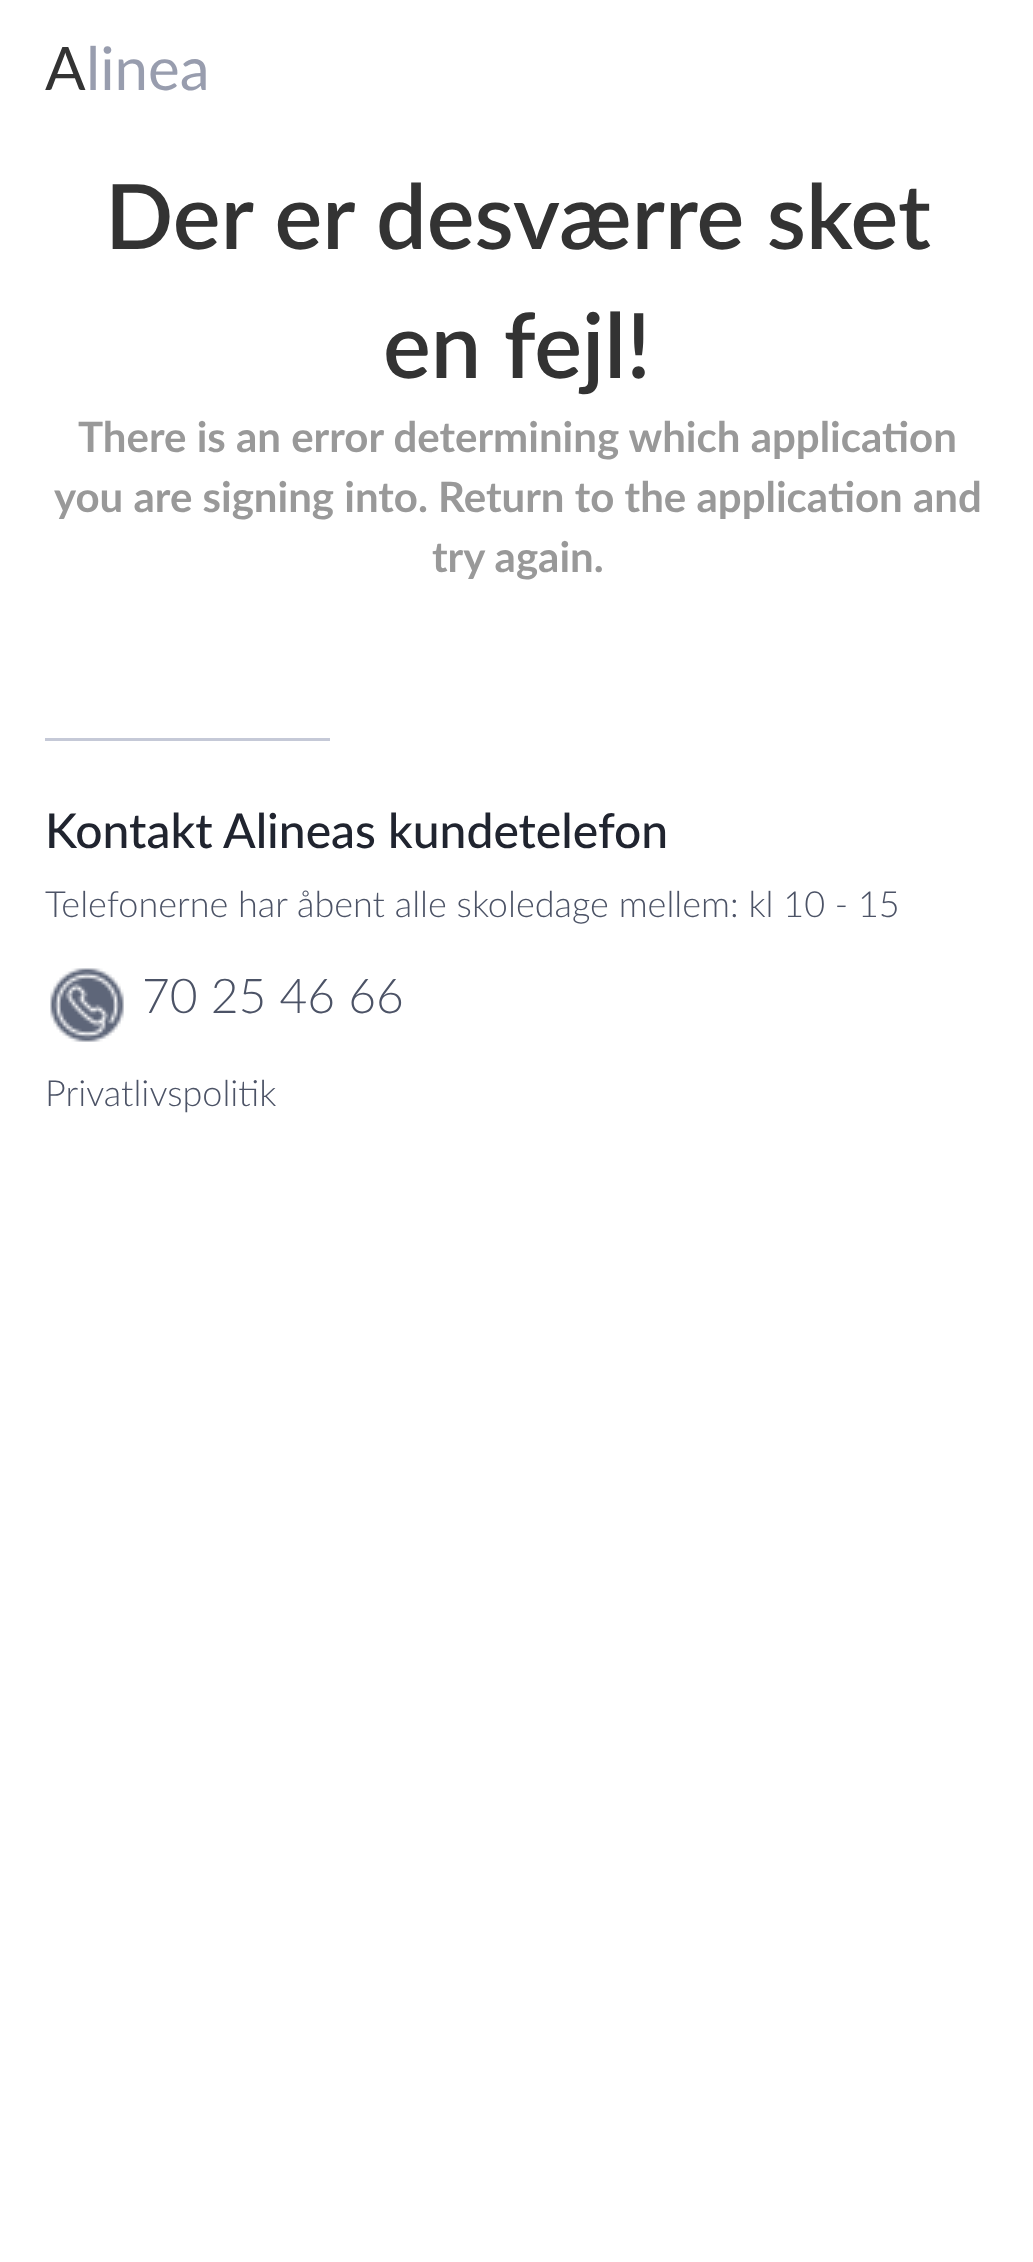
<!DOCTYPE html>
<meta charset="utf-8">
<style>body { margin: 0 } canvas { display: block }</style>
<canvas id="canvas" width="1033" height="2262"></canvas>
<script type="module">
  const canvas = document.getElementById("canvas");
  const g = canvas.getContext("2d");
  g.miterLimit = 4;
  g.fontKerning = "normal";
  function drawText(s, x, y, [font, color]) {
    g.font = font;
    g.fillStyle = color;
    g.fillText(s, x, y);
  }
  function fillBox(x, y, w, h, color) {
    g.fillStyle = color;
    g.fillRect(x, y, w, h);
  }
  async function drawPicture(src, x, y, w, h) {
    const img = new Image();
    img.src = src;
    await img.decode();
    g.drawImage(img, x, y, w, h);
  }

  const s1 = ["60px Lato", "#333333"];
  const s2 = ["60px Lato", "#989DAE"];
  const s3 = ["600 90px Lato", "#333333"];
  const s4 = ["bold 42px Lato", "#999999"];
  const s5 = ["500 48px Lato", "#20242F"];
  const s6 = ["300 36px Lato", "#4C5366"];
  const s7 = ["300 48px Lato", "#4C5366"];

  fillBox(0, 0, 1033, 2262, "#FFFFFF");
  drawText("A", 45, 90, s1);
  drawText("linea", 86, 90, s2);
  drawText("Der er desværre sket", 105, 249, s3);
  drawText("en fejl!", 383, 378, s3);
  drawText("There is an error determining which application", 78, 452, s4);
  drawText("you are signing into. Return to the application and", 54, 512, s4);
  drawText("try again.", 432, 572, s4);
  fillBox(45, 738, 285, 3, "#C5C9D7");
  drawText("Kontakt Alineas kundetelefon", 45, 848, s5);
  drawText("Telefonerne har åbent alle skoledage mellem: kl 10 - 15", 45, 917, s6);
  await drawPicture("pic1.png", 50, 968, 74, 74);
  drawText("70 25 46 66", 142, 1013, s7);
  drawText("Privatlivspolitik", 45, 1106, s6);
</script>
